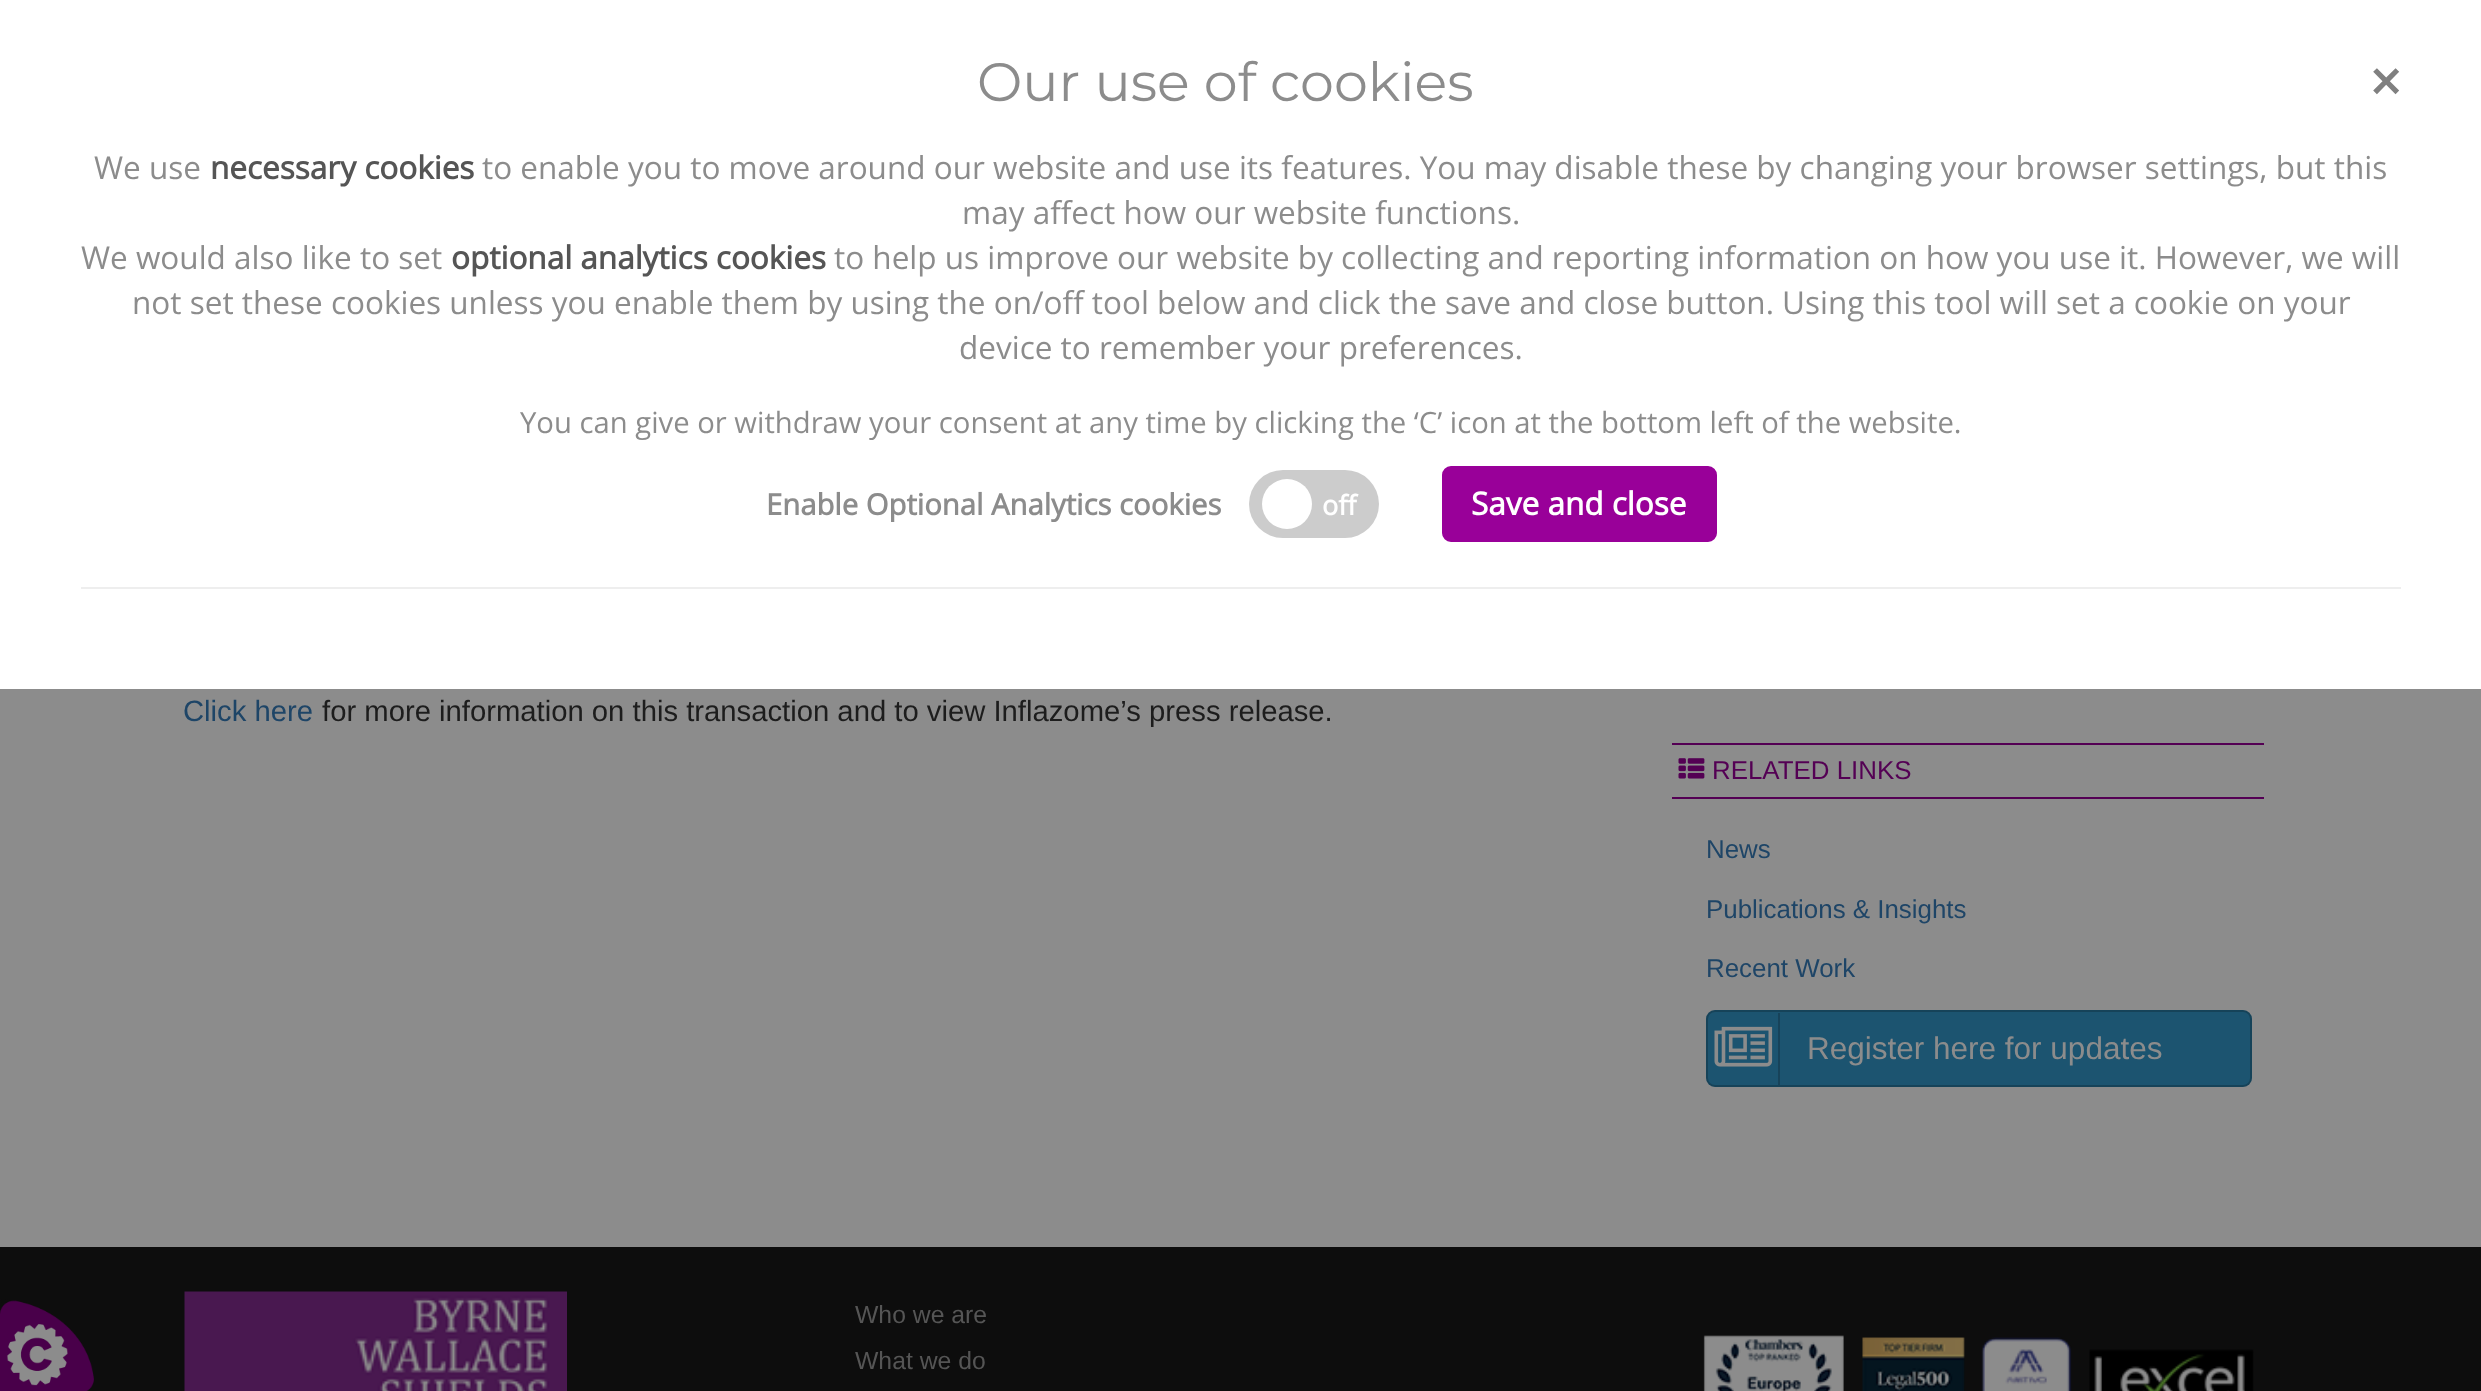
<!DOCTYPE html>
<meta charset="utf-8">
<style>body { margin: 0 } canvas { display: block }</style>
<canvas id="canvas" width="2481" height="1391"></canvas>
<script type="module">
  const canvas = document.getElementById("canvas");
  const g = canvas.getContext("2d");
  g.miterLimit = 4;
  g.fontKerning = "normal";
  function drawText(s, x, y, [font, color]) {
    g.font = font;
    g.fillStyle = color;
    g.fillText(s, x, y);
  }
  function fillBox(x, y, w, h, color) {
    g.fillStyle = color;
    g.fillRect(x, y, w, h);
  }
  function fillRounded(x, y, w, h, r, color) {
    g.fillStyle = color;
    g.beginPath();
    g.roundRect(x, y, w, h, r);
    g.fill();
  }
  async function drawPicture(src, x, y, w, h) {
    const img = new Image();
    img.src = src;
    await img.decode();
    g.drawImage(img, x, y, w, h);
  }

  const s1 = ["100 54px Montserrat", "#8C8C8C"];
  const s2 = ["bold 54px Open Sans", "#808080"];
  const s3 = ["31.5px Open Sans", "#8C8C8C"];
  const s4 = ["bold 31.5px Open Sans", "#555555"];
  const s5 = ["29.25px Open Sans", "#8C8C8C"];
  const s6 = ["bold 29.25px Open Sans", "#8C8C8C"];
  const s7 = ["bold 27px Open Sans", "#FFFFFF"];
  const s8 = ["bold 31.5px Open Sans", "#FFFFFF"];
  const s9 = ["29.25px Liberation Sans", "#1E4567"];
  const s10 = ["29.25px Liberation Sans", "#1D1D1D"];
  const s11 = ["25.9px Liberation Sans", "#540054"];
  const s12 = ["25.9px Liberation Sans", "#1E4567"];
  const s13 = ["31.5px Liberation Sans", "#8C8C8C"];
  const s14 = ["24.75px Liberation Sans", "#555555"];

  fillBox(0, 0, 2481, 1391, "#8C8C8C");
  fillBox(0, 0, 2481, 689, "#FFFFFF");
  drawText("Our use of cookies", 977, 101, s1);
  drawText("×", 2370, 101, s2);
  drawText("We use", 94, 179, s3);
  drawText("necessary cookies", 210, 179, s4);
  drawText("to enable you to move around our website and use its features. You may disable these by changing your browser settings, but this", 482, 179, s3);
  drawText("may affect how our website functions.", 962, 224, s3);
  drawText("We would also like to set", 81, 269, s3);
  drawText("optional analytics cookies", 451, 269, s4);
  drawText("to help us improve our website by collecting and reporting information on how you use it. However, we will", 834, 269, s3);
  drawText("not set these cookies unless you enable them by using the on/off tool below and click the save and close button. Using this tool will set a cookie on your", 132, 314, s3);
  drawText("device to remember your preferences.", 959, 359, s3);
  drawText("You can give or withdraw your consent at any time by clicking the ‘C’ icon at the bottom left of the website.", 520, 433, s5);
  drawText("Enable Optional Analytics cookies", 766, 515, s6);
  fillRounded(1249, 470, 130, 68, 34, "#CCCCCC");
  g.fillStyle = "#FFFFFF";
  g.beginPath();
  g.arc(1287, 504, 25, 0, Math.PI * 2);
  g.fill();
  drawText("off", 1322, 515, s7);
  g.fillStyle = "#990099";
  g.beginPath();
  g.roundRect(1443, 467, 273, 74, 8);
  g.fill();
  g.strokeStyle = "#990099";
  g.lineWidth = 2;
  g.stroke();
  drawText("Save and close", 1471, 515, s8);
  fillBox(81, 587, 2320, 2, "#EEEEEE");
  drawText("Click here", 183, 721, s9);
  drawText("for more information on this transaction and to view Inflazome’s press release.", 322, 721, s10);
  fillBox(1672, 743, 592, 2, "#540054");
  fillBox(1672, 797, 592, 2, "#540054");
  await drawPicture("pic1.png", 1678, 758, 27, 21);
  drawText("RELATED LINKS", 1712, 779, s11);
  drawText("News", 1706, 858, s12);
  drawText("Publications & Insights", 1706, 918, s12);
  drawText("Recent Work", 1706, 977, s12);
  fillRounded(1706, 1010, 546, 77, 9, "#1C5470");
  g.beginPath();
  g.roundRect(1707, 1011, 544, 75, 8);
  g.strokeStyle = "rgba(0, 0, 0, 0.2)";
  g.stroke();
  fillBox(1778, 1013, 2, 72, "#17435A");
  await drawPicture("pic2.png", 1714, 1026, 59, 41);
  drawText("Register here for updates", 1807, 1059, s13);
  fillBox(0, 1247, 2481, 144, "#0D0D0D");
  await drawPicture("pic3.png", 0, 1299, 94, 92);
  await drawPicture("pic4.png", 184, 1291, 383, 100);
  drawText("Who we are", 855, 1323, s14);
  drawText("What we do", 855, 1369, s14);
  await drawPicture("pic5.png", 1703, 1335, 551, 56);
</script>
